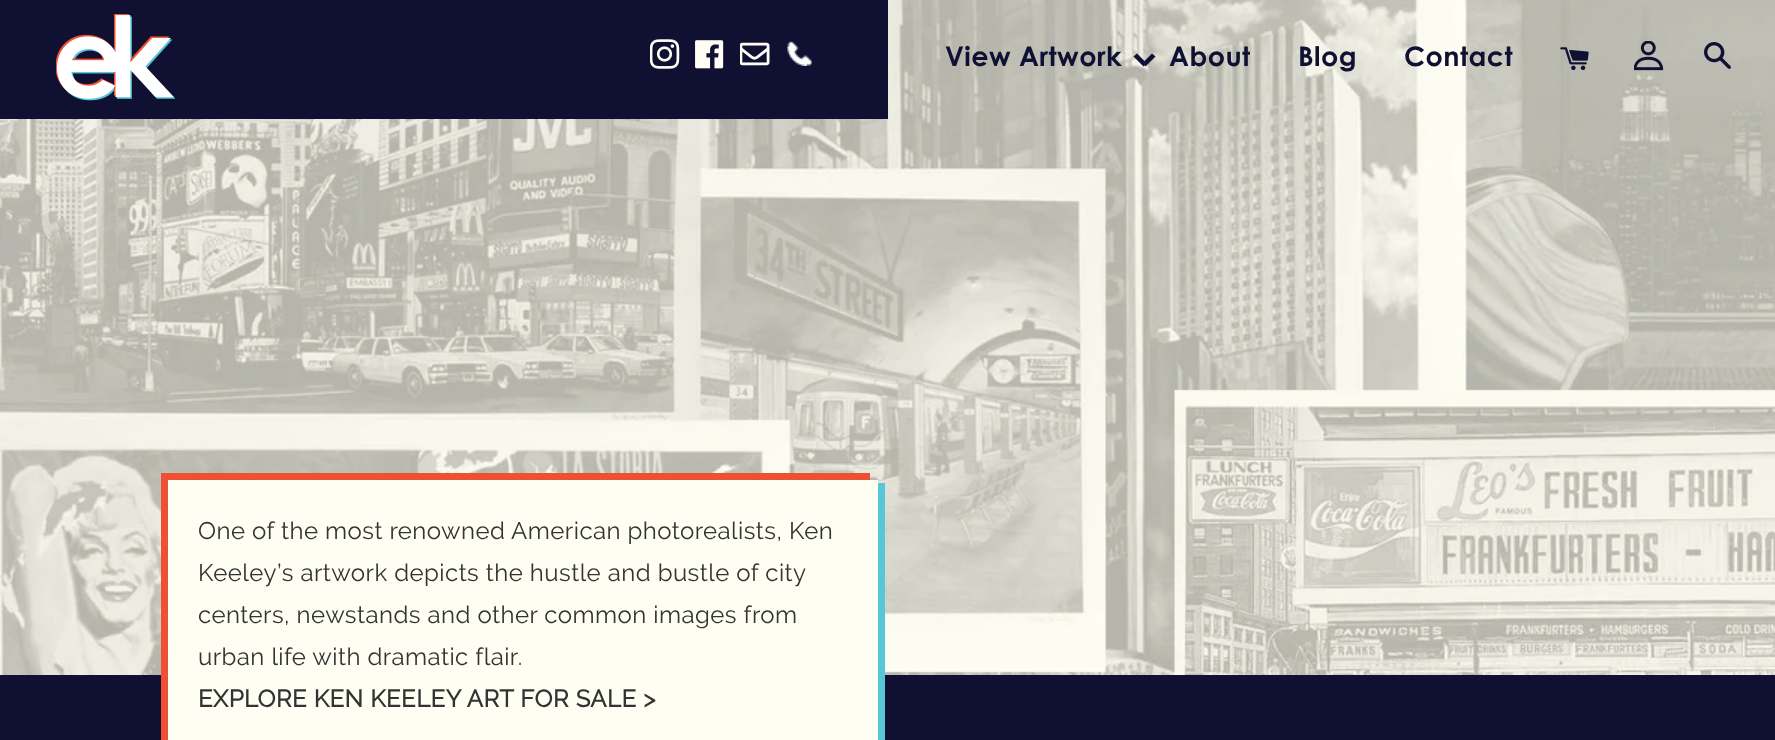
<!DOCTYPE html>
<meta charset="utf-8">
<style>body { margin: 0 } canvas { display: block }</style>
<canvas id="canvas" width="1775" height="740"></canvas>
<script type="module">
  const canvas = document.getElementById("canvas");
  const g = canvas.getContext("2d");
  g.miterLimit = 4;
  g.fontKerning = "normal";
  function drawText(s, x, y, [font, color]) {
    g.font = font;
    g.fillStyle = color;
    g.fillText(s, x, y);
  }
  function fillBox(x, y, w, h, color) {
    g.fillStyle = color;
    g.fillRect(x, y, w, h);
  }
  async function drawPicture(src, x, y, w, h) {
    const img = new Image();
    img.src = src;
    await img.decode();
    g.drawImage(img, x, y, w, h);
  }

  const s1 = ["bold 27px Century Gothic", "#0F1032"];
  const s2 = ["24px Raleway", "#333333"];
  const s3 = ["bold 24px Raleway", "#333333"];

  fillBox(0, 0, 1775, 740, "#FFFFFF");
  await drawPicture("pic9.png", 0, 0, 1775, 675);
  fillBox(0, 0, 888, 119, "#0F1032");
  await drawPicture("pic1.png", 56, 14, 120, 87);
  await drawPicture("pic2.png", 650, 39, 30, 30);
  await drawPicture("pic3.png", 695, 40, 29, 29);
  await drawPicture("pic4.png", 740, 42, 30, 24);
  await drawPicture("pic5.png", 787, 41, 25, 25);
  g.letterSpacing = "0.45px";
  drawText("View Artwork", 945, 66, s1);
  g.beginPath();
  g.moveTo(1142.5, 63);
  g.lineTo(1152, 53.5);
  g.lineTo(1155.5, 56.5);
  g.lineTo(1145.5, 66.5);
  g.closePath();
  g.fill();
  g.beginPath();
  g.moveTo(1133.5, 56.5);
  g.lineTo(1137, 53.5);
  g.lineTo(1146.5, 63);
  g.lineTo(1143.5, 66.5);
  g.closePath();
  g.fill();
  drawText("About", 1169, 66, s1);
  drawText("Blog", 1298, 66, s1);
  drawText("Contact", 1404, 66, s1);
  await drawPicture("pic6.png", 1560, 47, 29, 24);
  await drawPicture("pic7.png", 1634, 41, 30, 30);
  await drawPicture("pic8.png", 1704, 42, 27, 27);
  fillBox(0, 675, 1775, 65, "#0F1032");
  fillBox(168, 480, 710, 260, "#FEFEF3");
  fillBox(161, 473, 7, 267, "#EF4F33");
  fillBox(168, 473, 702, 7, "#EF4F33");
  drawText("One of the most renowned American photorealists, Ken", 198, 539, s2);
  drawText("Keeley’s artwork depicts the hustle and bustle of city", 198, 581, s2);
  drawText("centers, newstands and other common images from", 198, 623, s2);
  drawText("urban life with dramatic flair.", 198, 665, s2);
  drawText("EXPLORE KEN KEELEY ART FOR SALE >", 198, 707, s3);
  fillBox(878, 483, 7, 257, "#57C7D8");
</script>
